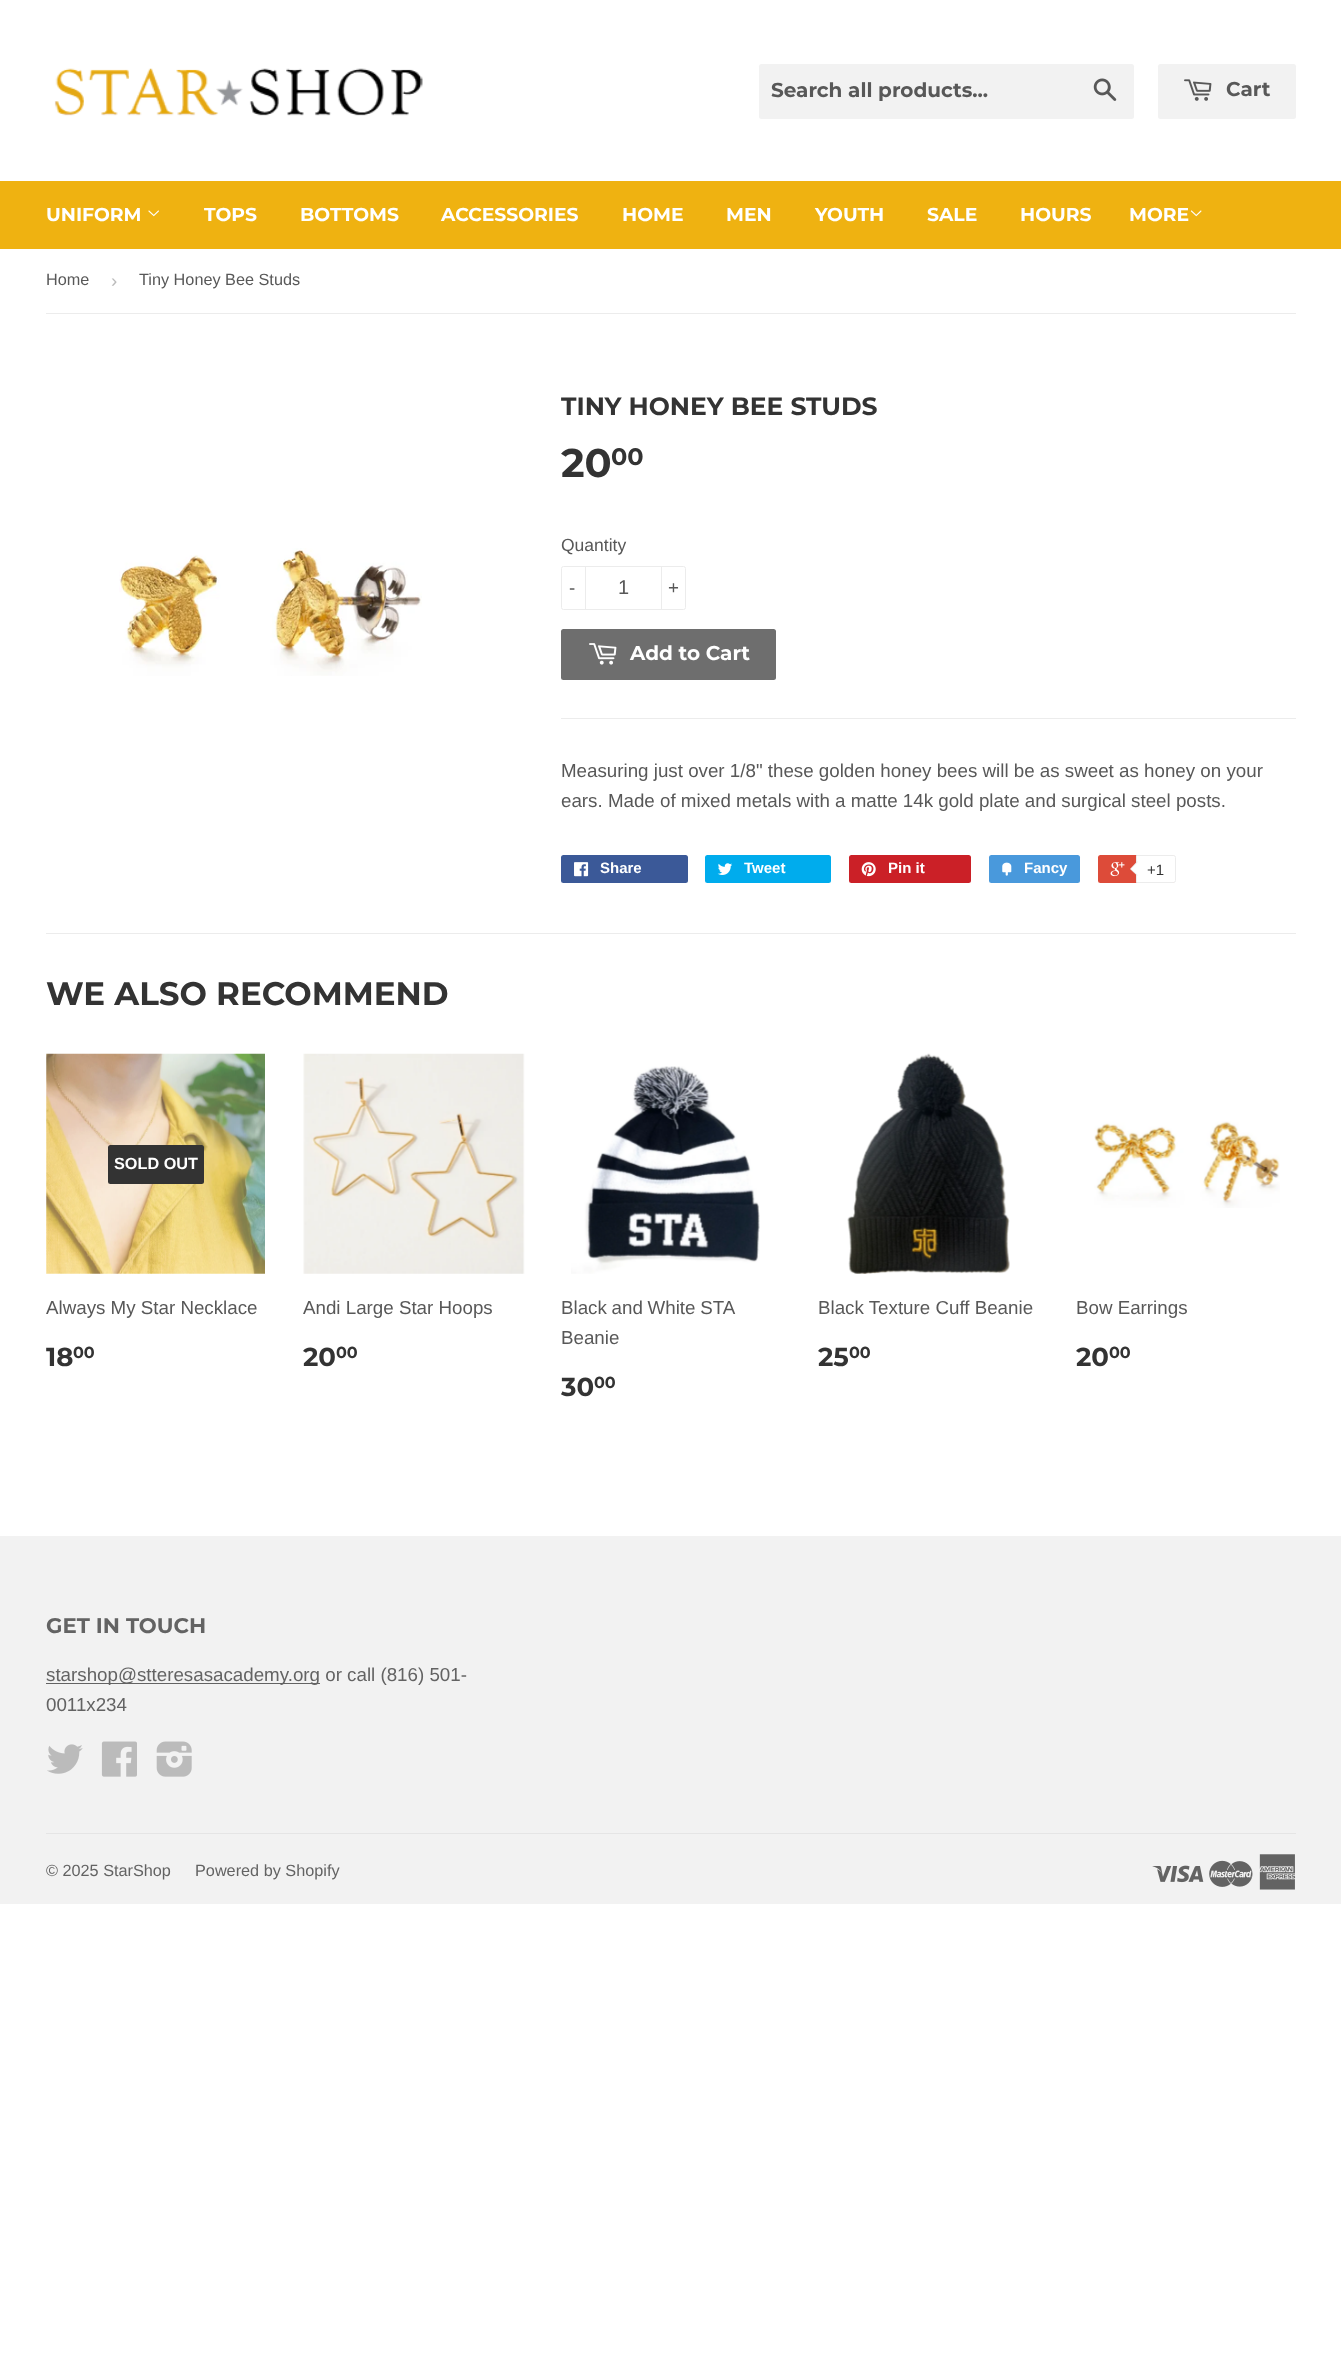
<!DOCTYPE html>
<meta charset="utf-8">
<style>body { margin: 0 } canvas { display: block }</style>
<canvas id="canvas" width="1341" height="2362"></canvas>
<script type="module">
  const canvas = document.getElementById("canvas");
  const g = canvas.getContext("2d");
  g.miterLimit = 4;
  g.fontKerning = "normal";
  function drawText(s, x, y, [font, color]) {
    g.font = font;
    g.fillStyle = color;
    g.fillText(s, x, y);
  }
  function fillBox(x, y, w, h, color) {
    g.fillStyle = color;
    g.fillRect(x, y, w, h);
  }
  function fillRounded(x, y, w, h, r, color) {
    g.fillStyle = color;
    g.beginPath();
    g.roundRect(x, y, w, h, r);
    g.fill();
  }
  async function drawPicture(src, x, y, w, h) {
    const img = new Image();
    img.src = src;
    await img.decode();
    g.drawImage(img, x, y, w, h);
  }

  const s1 = ["100 20px Montserrat", "#585858"];
  const s2 = ["100 18.75px Montserrat", "#FFFFFF"];
  const s3 = ["16.25px Liberation Sans", "#585858"];
  const s4 = ["18.75px Liberation Sans", "#BBBBBB"];
  const s5 = ["100 25px Montserrat", "#333333"];
  const s6 = ["100 40px Montserrat", "#333333"];
  const s7 = ["100 24px Montserrat", "#333333"];
  const s8 = ["17.5px Liberation Sans", "#585858"];
  const s9 = ["18.75px Liberation Sans", "#585858"];
  const s10 = ["20px Liberation Sans", "#585858"];
  const s11 = ["100 20px Montserrat", "#FFFFFF"];
  const s12 = ["bold 15px Liberation Sans", "#FFFFFF"];
  const s13 = ["15px Liberation Sans", "#333333"];
  const s14 = ["100 32.5px Montserrat", "#333333"];
  const s15 = ["bold 16.25px Liberation Sans", "#FFFFFF"];
  const s16 = ["100 26px Montserrat", "#333333"];
  const s17 = ["100 16px Montserrat", "#333333"];
  const s18 = ["100 21.25px Montserrat", "#636363"];
  const s19 = ["18.75px Liberation Sans", "#636363"];
  const s20 = ["16.25px Liberation Sans", "#636363"];

  fillBox(0, 0, 1341, 2362, "#FFFFFF");
  await drawPicture("pic1.png", 54, 68, 369, 48);
  fillRounded(759, 64, 375, 55, 2.5, "#F2F2F2");
  drawText("Search all products...", 771, 97, s1);
  await drawPicture("pic2.png", 1093, 78, 24, 23);
  fillRounded(1158, 64, 138, 55, 2.5, "#F2F2F2");
  await drawPicture("pic3.png", 1184, 79, 28, 22);
  drawText("Cart", 1226, 96, s1);
  fillBox(0, 181, 1341, 68, "#EFB211");
  drawText("UNIFORM", 46, 221, s2);
  await drawPicture("pic4.png", 148, 210, 11, 7);
  drawText("TOPS", 204, 221, s2);
  drawText("BOTTOMS", 300, 221, s2);
  drawText("ACCESSORIES", 441, 221, s2);
  drawText("HOME", 622, 221, s2);
  drawText("MEN", 726, 221, s2);
  drawText("YOUTH", 815, 221, s2);
  drawText("SALE", 927, 221, s2);
  drawText("HOURS", 1020, 221, s2);
  drawText("MORE", 1129, 221, s2);
  await drawPicture("pic5.png", 1190, 210, 12, 7);
  fillBox(46, 313, 1250, 1, "#ECECEC");
  drawText("Home", 46, 285, s3);
  drawText("›", 111, 287, s4);
  drawText("Tiny Honey Bee Studs", 139, 285, s3);
  await drawPicture("pic6.png", 119, 548, 303, 128);
  drawText("TINY HONEY BEE STUDS", 561, 415, s5);
  drawText("20", 561, 477, s6);
  drawText("00", 611, 465, s7);
  drawText("Quantity", 561, 551, s8);
  g.beginPath();
  g.roundRect(561.5, 566.5, 124, 43, 2);
  g.strokeStyle = "#ECECEC";
  g.stroke();
  fillBox(585, 566, 1, 44, "#ECECEC");
  drawText("-", 569, 594, s9);
  drawText("1", 618, 594, s10);
  fillBox(661, 566, 1, 44, "#ECECEC");
  drawText("+", 668, 594, s9);
  fillRounded(561, 629, 215, 51, 2.5, "#6E6E6E");
  await drawPicture("pic7.png", 589, 643, 28, 22);
  drawText("Add to Cart", 630, 660, s11);
  fillBox(561, 718, 735, 1, "#ECECEC");
  drawText("Measuring just over 1/8\" these golden honey bees will be as sweet as honey on your", 561, 777, s9);
  drawText("ears. Made of mixed metals with a matte 14k gold plate and surgical steel posts.", 561, 807, s9);
  fillRounded(561, 855, 127, 28, 2.5, "#3B5998");
  await drawPicture("pic8.png", 574, 862, 15, 15);
  drawText("Share", 600, 873, s12);
  fillRounded(705, 855, 126, 28, 2.5, "#00ACED");
  await drawPicture("pic9.png", 717, 863, 15, 12);
  drawText("Tweet", 744, 873, s12);
  fillRounded(849, 855, 122, 28, 2.5, "#CB2027");
  await drawPicture("pic10.png", 861, 862, 15, 15);
  drawText("Pin it", 888, 873, s12);
  fillRounded(989, 855, 91, 28, 2.5, "#4999DC");
  await drawPicture("pic11.png", 1002, 862, 10, 14);
  drawText("Fancy", 1024, 873, s12);
  fillRounded(1098, 855, 76, 28, 2.5, "#DD4B39");
  await drawPicture("pic12.png", 1110, 862, 15, 15);
  g.fillStyle = "#FFFFFF";
  g.beginPath();
  g.roundRect(1136.5, 855.5, 39, 27, [0, 2, 2, 0]);
  g.fill();
  g.stroke();
  g.fillStyle = "#ECECEC";
  g.beginPath();
  g.moveTo(1137.5, 861);
  g.lineTo(1137.5, 876);
  g.lineTo(1130, 869);
  g.closePath();
  g.fill();
  g.fillStyle = "#FFFFFF";
  g.beginPath();
  g.moveTo(1139, 861);
  g.lineTo(1139, 876);
  g.lineTo(1131, 869);
  g.closePath();
  g.fill();
  drawText("+1", 1147, 875, s13);
  fillBox(46, 933, 1250, 1, "#ECECEC");
  drawText("WE ALSO RECOMMEND", 46, 1005, s14);
  await drawPicture("pic13.png", 46, 1053, 219, 221);
  fillRounded(108, 1145, 96, 39, 2.5, "#333333");
  drawText("SOLD OUT", 114, 1169, s15);
  drawText("Always My Star Necklace", 46, 1314, s9);
  drawText("18", 46, 1366, s16);
  drawText("00", 73, 1358, s17);
  await drawPicture("pic14.png", 303, 1053, 222, 221);
  drawText("Andi Large Star Hoops", 303, 1314, s9);
  drawText("20", 303, 1366, s16);
  drawText("00", 336, 1358, s17);
  await drawPicture("pic15.png", 571, 1066, 189, 208);
  g.wordSpacing = "-0.5px";
  drawText("Black and White STA", 561, 1314, s9);
  g.wordSpacing = "0px";
  drawText("Beanie", 561, 1344, s9);
  drawText("30", 561, 1396, s16);
  drawText("00", 594, 1388, s17);
  await drawPicture("pic16.png", 847, 1053, 163, 221);
  drawText("Black Texture Cuff Beanie", 818, 1314, s9);
  drawText("25", 818, 1366, s16);
  drawText("00", 849, 1358, s17);
  await drawPicture("pic17.png", 1094, 1121, 186, 87);
  drawText("Bow Earrings", 1076, 1314, s9);
  drawText("20", 1076, 1366, s16);
  drawText("00", 1109, 1358, s17);
  fillBox(0, 1536, 1341, 368, "#F2F2F2");
  drawText("GET IN TOUCH", 46, 1633, s18);
  fillBox(46, 1683, 274, 1, "#636363");
  drawText("starshop@stteresasacademy.org or call (816) 501-", 46, 1681, s19);
  drawText("0011x234", 46, 1711, s19);
  await drawPicture("pic18.png", 47, 1744, 36, 30);
  await drawPicture("pic19.png", 101, 1741, 36, 36);
  await drawPicture("pic20.png", 156, 1741, 36, 36);
  fillBox(46, 1833, 1250, 1, "#E5E5E5");
  drawText("© 2025 StarShop", 46, 1876, s20);
  drawText("Powered by Shopify", 195, 1876, s20);
  await drawPicture("pic21.png", 1152, 1865, 52, 18);
  await drawPicture("pic22.png", 1209, 1860, 44, 27);
  await drawPicture("pic23.png", 1259, 1854, 37, 36);
</script>
